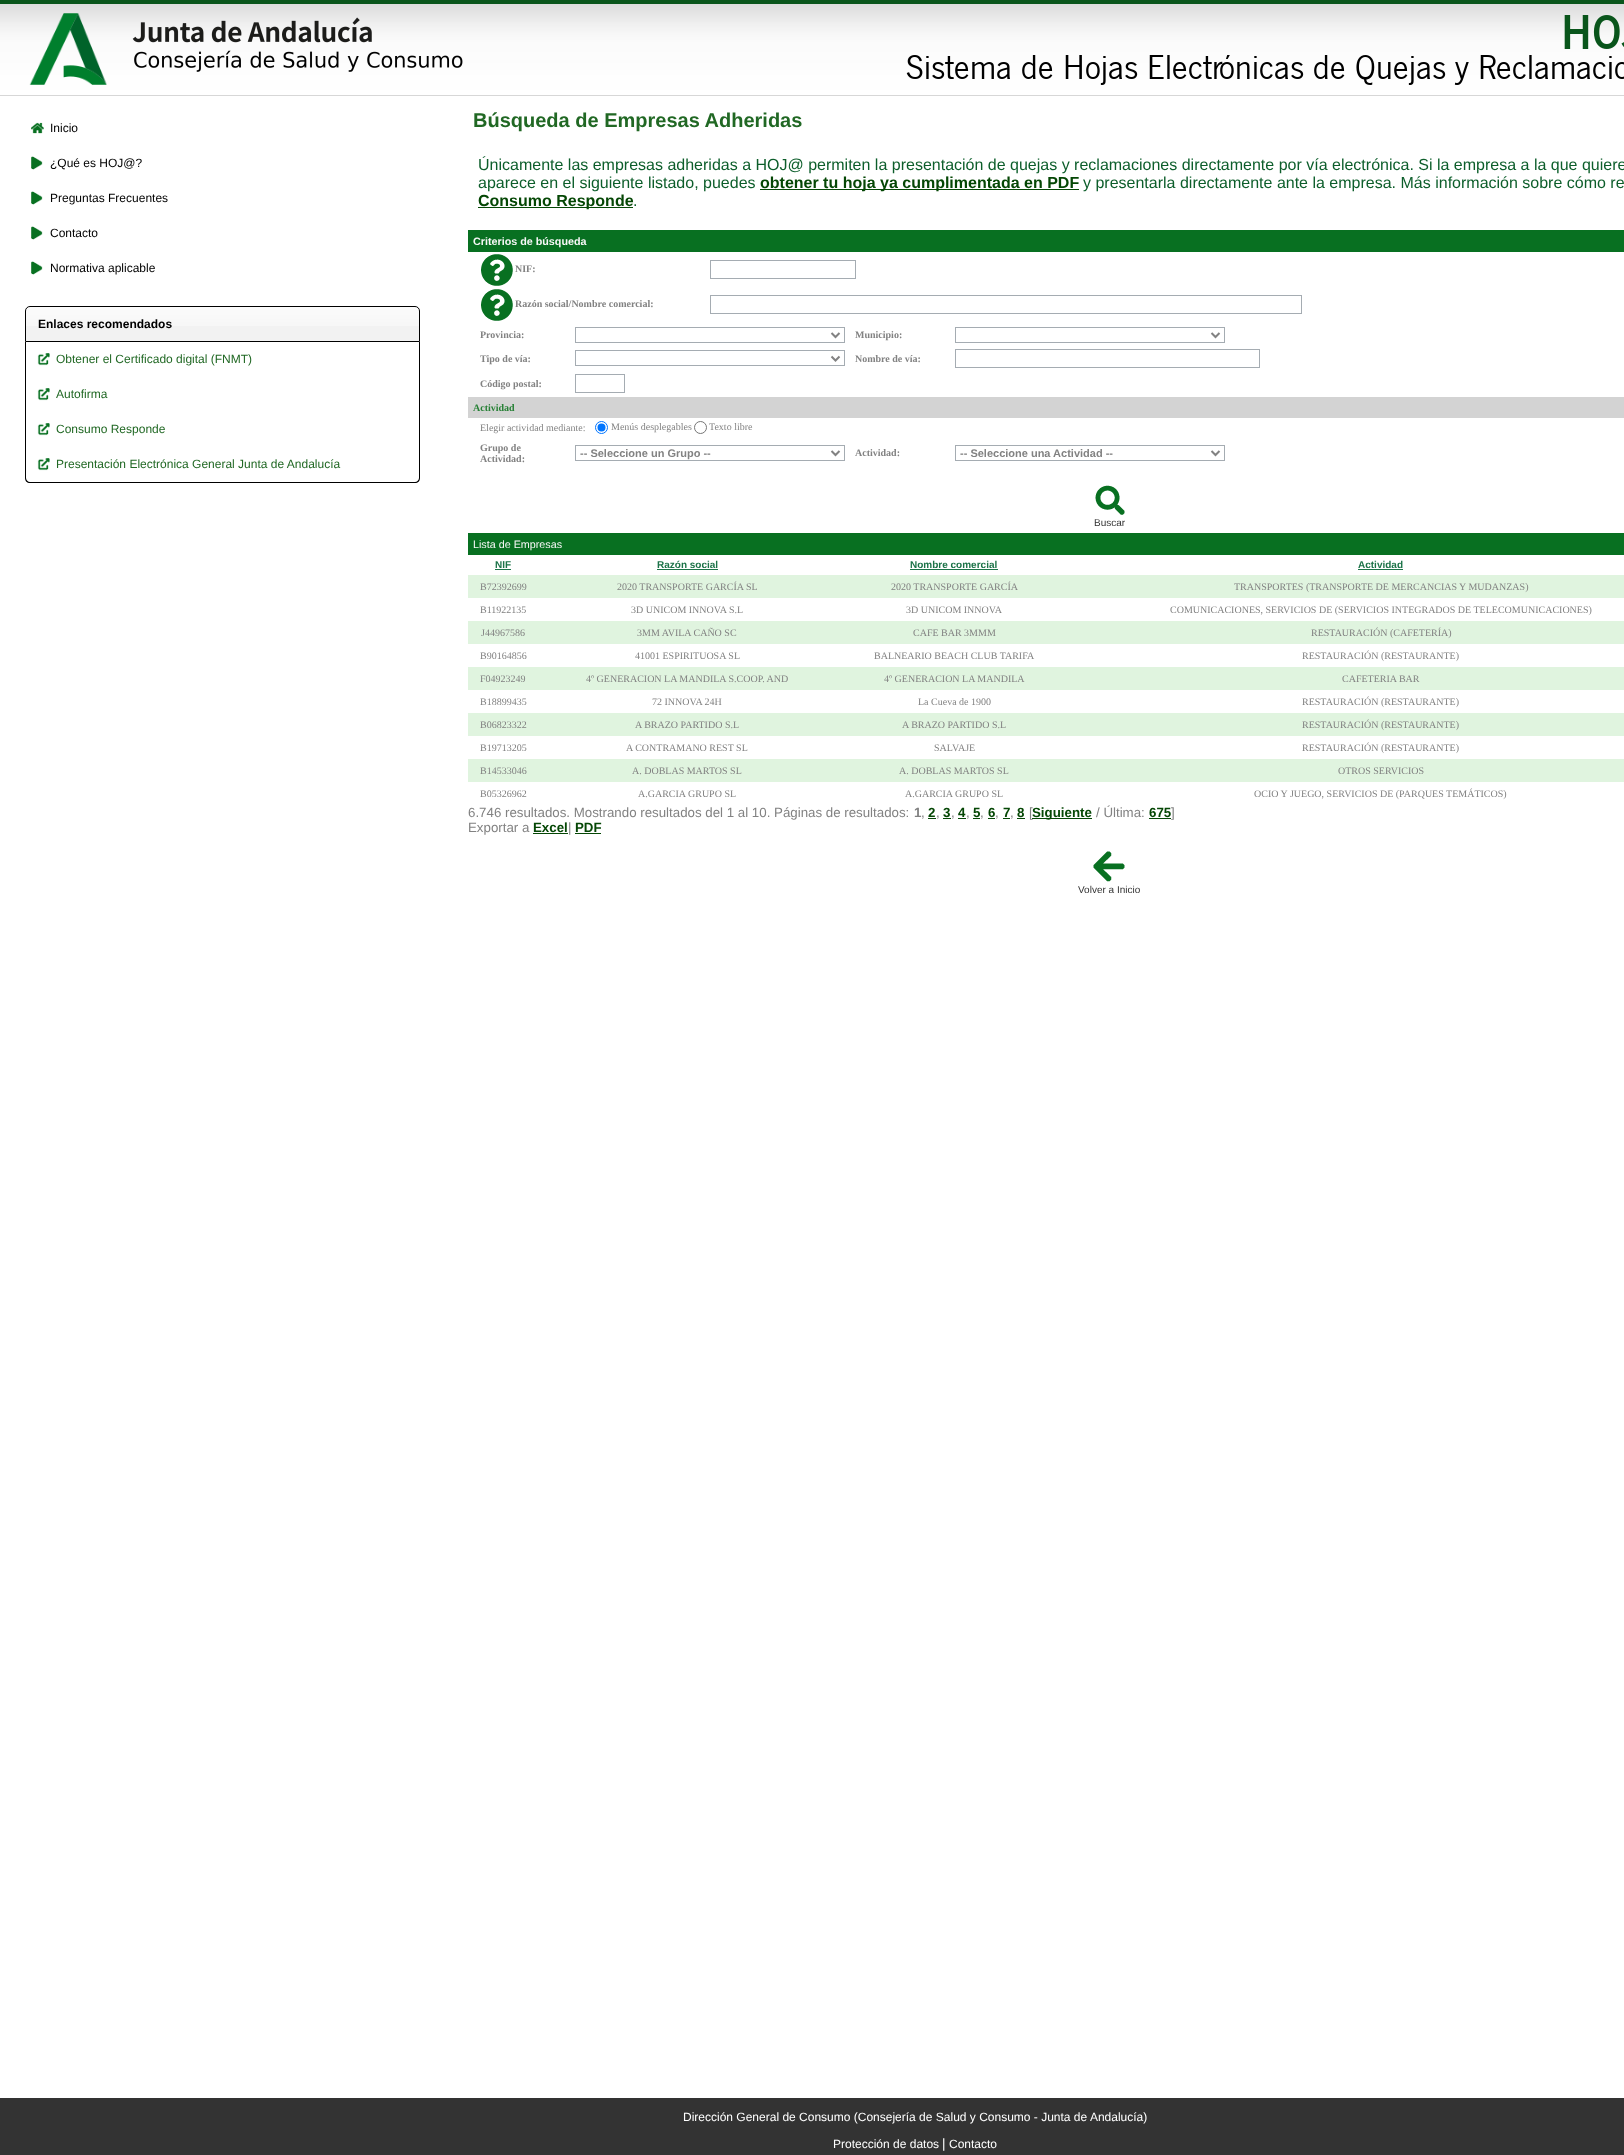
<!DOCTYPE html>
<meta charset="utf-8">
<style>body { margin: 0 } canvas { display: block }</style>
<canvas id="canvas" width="1624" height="2155"></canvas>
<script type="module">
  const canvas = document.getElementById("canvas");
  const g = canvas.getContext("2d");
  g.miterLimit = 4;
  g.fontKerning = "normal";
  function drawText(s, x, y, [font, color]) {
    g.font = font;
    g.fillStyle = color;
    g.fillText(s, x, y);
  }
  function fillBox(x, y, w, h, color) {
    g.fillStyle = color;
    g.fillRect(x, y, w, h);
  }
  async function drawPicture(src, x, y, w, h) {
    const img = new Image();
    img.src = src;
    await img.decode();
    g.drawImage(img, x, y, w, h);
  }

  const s1 = ["12px Liberation Sans", "#000000"];
  const s2 = ["bold 12px Liberation Sans", "#000000"];
  const s3 = ["12px Liberation Sans", "#216824"];
  const s4 = ["bold 20px Liberation Sans", "#216824"];
  const s5 = ["16px Liberation Sans", "#0D5E2B"];
  const s6 = ["bold 16px Liberation Sans", "#054705"];
  const s7 = ["bold 10.75px Liberation Sans", "#F8F8F8"];
  const s8 = ["bold 10px Liberation Serif", "#828282"];
  const s9 = ["bold 10px Liberation Serif", "#268035"];
  const s10 = ["10px Liberation Serif", "#828282"];
  const s11 = ["bold 11px Liberation Sans", "#828282"];
  const s12 = ["10px Liberation Sans", "#333333"];
  const s13 = ["10.75px Liberation Sans", "#F8F8F8"];
  const s14 = ["bold 10px Liberation Sans", "#1C7348"];
  const s15 = ["13.3px Liberation Sans", "#828282"];
  const s16 = ["bold 13.3px Liberation Sans", "#828282"];
  const s17 = ["bold 13.3px Liberation Sans", "#054705"];
  const s18 = ["12px Liberation Sans", "#FFFFFF"];
  const s19 = ["13.3px Liberation Sans", "#FFFFFF"];

  fillBox(0, 0, 1624, 2155, "#FFFFFF");
  await drawPicture("pic1.png", 0, 4, 1624, 91);
  fillBox(0, 0, 1624, 4, "#09551B");
  fillBox(0, 95, 1624, 1, "#D7D7D7");
  await drawPicture("pic2.png", 29, 13, 78, 72);
  await drawPicture("pic3.png", 132, 17, 331, 55);
  await drawPicture("pic4.png", 906, 15, 718, 70);
  await drawPicture("pic5.png", 31, 122, 13, 12);
  drawText("Inicio", 50, 132, s1);
  await drawPicture("pic6.png", 31, 156, 12, 14);
  drawText("¿Qué es HOJ@?", 50, 167, s1);
  await drawPicture("pic6.png", 31, 191, 12, 14);
  drawText("Preguntas Frecuentes", 50, 202, s1);
  await drawPicture("pic6.png", 31, 226, 12, 14);
  drawText("Contacto", 50, 237, s1);
  await drawPicture("pic6.png", 31, 261, 12, 14);
  drawText("Normativa aplicable", 50, 272, s1);
  g.fillStyle = "#F2F2F2";
  g.beginPath();
  g.roundRect(25, 306, 395, 36, [5, 5, 0, 0]);
  g.fill();
  await drawPicture("pic7.png", 25, 307, 395, 19);
  g.beginPath();
  g.roundRect(25.5, 306.5, 394, 35, [4.5, 4.5, 0, 0]);
  g.strokeStyle = "#000000";
  g.stroke();
  drawText("Enlaces recomendados", 38, 328, s2);
  g.beginPath();
  g.moveTo(25, 342);
  g.lineTo(420, 342);
  g.lineTo(420, 478);
  g.bezierCurveTo(420, 481, 418, 483, 415, 483);
  g.lineTo(30, 483);
  g.bezierCurveTo(27, 483, 25, 481, 25, 478);
  g.closePath();
  g.moveTo(26, 342);
  g.lineTo(419, 342);
  g.lineTo(419, 478);
  g.bezierCurveTo(419, 480, 417, 482, 415, 482);
  g.lineTo(30, 482);
  g.bezierCurveTo(28, 482, 26, 480, 26, 478);
  g.closePath();
  g.fill("evenodd");
  await drawPicture("pic8.png", 37, 353, 13, 13);
  drawText("Obtener el Certificado digital (FNMT)", 56, 363, s3);
  await drawPicture("pic8.png", 37, 388, 13, 13);
  drawText("Autofirma", 56, 398, s3);
  await drawPicture("pic8.png", 37, 423, 13, 13);
  drawText("Consumo Responde", 56, 433, s3);
  await drawPicture("pic8.png", 37, 458, 13, 13);
  drawText("Presentación Electrónica General Junta de Andalucía", 56, 468, s3);
  drawText("Búsqueda de Empresas Adheridas", 473, 127, s4);
  drawText("Únicamente las empresas adheridas a HOJ@ permiten la presentación de quejas y reclamaciones directamente por vía electrónica. Si la empresa a la que quiere", 478, 170, s5);
  drawText("aparece en el siguiente listado, puedes", 478, 188, s5);
  fillBox(760, 189, 319, 1, "#054705");
  drawText("obtener tu hoja ya cumplimentada en PDF", 760, 188, s6);
  drawText("y presentarla directamente ante la empresa. Más información sobre cómo re", 1083, 188, s5);
  fillBox(478, 207, 155, 1, "#054705");
  drawText("Consumo Responde", 478, 206, s6);
  drawText(".", 633, 206, s5);
  fillBox(468, 230, 1156, 22, "#087021");
  drawText("Criterios de búsqueda", 473, 245, s7);
  await drawPicture("pic9.png", 481, 254, 32, 32);
  drawText("NIF:", 515, 272, s8);
  g.strokeStyle = "#A5ACB2";
  g.strokeRect(710.5, 260.5, 145, 18);
  await drawPicture("pic9.png", 481, 289, 32, 32);
  drawText("Razón social/Nombre comercial:", 515, 307, s8);
  g.strokeRect(710.5, 295.5, 591, 18);
  drawText("Provincia:", 480, 338, s8);
  g.strokeRect(575.5, 327.5, 269, 15);
  g.beginPath();
  g.moveTo(831.5, 333);
  g.lineTo(835.5, 337);
  g.lineTo(839.5, 333);
  g.strokeStyle = "#828282";
  g.lineWidth = 2;
  g.stroke();
  drawText("Municipio:", 855, 338, s8);
  g.strokeStyle = "#A5ACB2";
  g.lineWidth = 1;
  g.strokeRect(955.5, 327.5, 269, 15);
  g.beginPath();
  g.moveTo(1211.5, 333);
  g.lineTo(1215.5, 337);
  g.lineTo(1219.5, 333);
  g.strokeStyle = "#828282";
  g.lineWidth = 2;
  g.stroke();
  drawText("Tipo de vía:", 480, 362, s8);
  g.strokeStyle = "#A5ACB2";
  g.lineWidth = 1;
  g.strokeRect(575.5, 350.5, 269, 15);
  g.beginPath();
  g.moveTo(831.5, 356.5);
  g.lineTo(835.5, 360.5);
  g.lineTo(839.5, 356.5);
  g.strokeStyle = "#828282";
  g.lineWidth = 2;
  g.stroke();
  drawText("Nombre de vía:", 855, 362, s8);
  g.strokeStyle = "#A5ACB2";
  g.lineWidth = 1;
  g.strokeRect(955.5, 349.5, 304, 18);
  drawText("Código postal:", 480, 387, s8);
  g.strokeRect(575.5, 374.5, 49, 18);
  fillBox(468, 397, 1156, 21, "#D3D3D3");
  drawText("Actividad", 473, 411, s9);
  drawText("Elegir actividad mediante:", 480, 431, s10);
  g.beginPath();
  g.arc(601.5, 427.5, 6, 0, Math.PI * 2);
  g.strokeStyle = "#0075FF";
  g.stroke();
  g.fillStyle = "#0075FF";
  g.beginPath();
  g.arc(601.5, 427.5, 4, 0, Math.PI * 2);
  g.fill();
  drawText("Menús desplegables", 611, 430, s10);
  g.beginPath();
  g.arc(700.5, 427.5, 6, 0, Math.PI * 2);
  g.strokeStyle = "#767676";
  g.stroke();
  drawText("Texto libre", 709, 430, s10);
  drawText("Grupo de", 480, 451, s8);
  drawText("Actividad:", 480, 462, s8);
  g.strokeStyle = "#A5ACB2";
  g.strokeRect(575.5, 445.5, 269, 15);
  g.beginPath();
  g.moveTo(831.5, 451);
  g.lineTo(835.5, 455);
  g.lineTo(839.5, 451);
  g.strokeStyle = "#828282";
  g.lineWidth = 2;
  g.stroke();
  drawText("-- Seleccione un Grupo --", 580, 457, s11);
  drawText("Actividad:", 855, 456, s8);
  g.strokeStyle = "#A5ACB2";
  g.lineWidth = 1;
  g.strokeRect(955.5, 445.5, 269, 15);
  g.beginPath();
  g.moveTo(1211.5, 451);
  g.lineTo(1215.5, 455);
  g.lineTo(1219.5, 451);
  g.strokeStyle = "#828282";
  g.lineWidth = 2;
  g.stroke();
  drawText("-- Seleccione una Actividad --", 960, 457, s11);
  await drawPicture("pic10.png", 1095, 485, 30, 30);
  drawText("Buscar", 1094, 526, s12);
  fillBox(468, 533, 1156, 22, "#087021");
  drawText("Lista de Empresas", 473, 548, s13);
  drawText("NIF", 495, 568, s14);
  fillBox(495, 569, 16, 1, "#1C7348");
  drawText("Razón social", 657, 568, s14);
  fillBox(657, 569, 61, 1, "#1C7348");
  drawText("Nombre comercial", 910, 568, s14);
  fillBox(910, 569, 88, 1, "#1C7348");
  drawText("Actividad", 1358, 568, s14);
  fillBox(1358, 569, 45, 1, "#1C7348");
  fillBox(468, 575, 1156, 23, "#E0F4DF");
  drawText("B72392699", 480, 590, s10);
  drawText("2020 TRANSPORTE GARCÍA SL", 617, 590, s10);
  drawText("2020 TRANSPORTE GARCÍA", 891, 590, s10);
  drawText("TRANSPORTES (TRANSPORTE DE MERCANCIAS Y MUDANZAS)", 1234, 590, s10);
  drawText("B11922135", 480, 613, s10);
  drawText("3D UNICOM INNOVA S.L", 631, 613, s10);
  drawText("3D UNICOM INNOVA", 906, 613, s10);
  drawText("COMUNICACIONES, SERVICIOS DE (SERVICIOS INTEGRADOS DE TELECOMUNICACIONES)", 1170, 613, s10);
  fillBox(468, 621, 1156, 23, "#E0F4DF");
  drawText("J44967586", 481, 636, s10);
  drawText("3MM AVILA CAÑO SC", 637, 636, s10);
  drawText("CAFE BAR 3MMM", 913, 636, s10);
  drawText("RESTAURACIÓN (CAFETERÍA)", 1311, 636, s10);
  drawText("B90164856", 480, 659, s10);
  drawText("41001 ESPIRITUOSA SL", 635, 659, s10);
  drawText("BALNEARIO BEACH CLUB TARIFA", 874, 659, s10);
  drawText("RESTAURACIÓN (RESTAURANTE)", 1302, 659, s10);
  fillBox(468, 667, 1156, 23, "#E0F4DF");
  drawText("F04923249", 480, 682, s10);
  drawText("4º GENERACION LA MANDILA S.COOP. AND", 586, 682, s10);
  drawText("4º GENERACION LA MANDILA", 884, 682, s10);
  drawText("CAFETERIA BAR", 1342, 682, s10);
  drawText("B18899435", 480, 705, s10);
  drawText("72 INNOVA 24H", 652, 705, s10);
  drawText("La Cueva de 1900", 918, 705, s10);
  drawText("RESTAURACIÓN (RESTAURANTE)", 1302, 705, s10);
  fillBox(468, 713, 1156, 23, "#E0F4DF");
  drawText("B06823322", 480, 728, s10);
  drawText("A BRAZO PARTIDO S.L", 635, 728, s10);
  drawText("A BRAZO PARTIDO S.L", 902, 728, s10);
  drawText("RESTAURACIÓN (RESTAURANTE)", 1302, 728, s10);
  drawText("B19713205", 480, 751, s10);
  drawText("A CONTRAMANO REST SL", 626, 751, s10);
  drawText("SALVAJE", 934, 751, s10);
  drawText("RESTAURACIÓN (RESTAURANTE)", 1302, 751, s10);
  fillBox(468, 759, 1156, 23, "#E0F4DF");
  drawText("B14533046", 480, 774, s10);
  drawText("A. DOBLAS MARTOS SL", 632, 774, s10);
  drawText("A. DOBLAS MARTOS SL", 899, 774, s10);
  drawText("OTROS SERVICIOS", 1338, 774, s10);
  drawText("B05326962", 480, 797, s10);
  drawText("A.GARCIA GRUPO SL", 638, 797, s10);
  drawText("A.GARCIA GRUPO SL", 905, 797, s10);
  drawText("OCIO Y JUEGO, SERVICIOS DE (PARQUES TEMÁTICOS)", 1254, 797, s10);
  drawText("6.746 resultados. Mostrando resultados del 1 al 10. Páginas de resultados:", 468, 817, s15);
  drawText("1", 914, 817, s16);
  drawText(",", 921, 817, s15);
  drawText("2", 928, 817, s17);
  drawText(",", 936, 817, s15);
  fillBox(928, 818, 8, 1, "#054705");
  drawText("3", 943, 817, s17);
  drawText(",", 951, 817, s15);
  fillBox(943, 818, 8, 1, "#054705");
  drawText("4", 958, 817, s17);
  drawText(",", 966, 817, s15);
  fillBox(958, 818, 8, 1, "#054705");
  drawText("5", 973, 817, s17);
  drawText(",", 980, 817, s15);
  fillBox(973, 818, 7, 1, "#054705");
  drawText("6", 988, 817, s17);
  drawText(",", 995, 817, s15);
  fillBox(988, 818, 7, 1, "#054705");
  drawText("7", 1003, 817, s17);
  drawText(",", 1010, 817, s15);
  fillBox(1003, 818, 7, 1, "#054705");
  fillBox(1017, 818, 8, 1, "#054705");
  drawText("8", 1017, 817, s17);
  drawText("[", 1029, 817, s15);
  fillBox(1032, 818, 60, 1, "#054705");
  drawText("Siguiente", 1032, 817, s17);
  drawText("/ Última:", 1096, 817, s15);
  drawText("675", 1149, 817, s17);
  fillBox(1149, 818, 22, 1, "#054705");
  drawText("]", 1171, 817, s15);
  drawText("Exportar a", 468, 832, s15);
  drawText("Excel", 533, 832, s17);
  drawText("|", 568, 832, s15);
  fillBox(533, 833, 35, 1, "#054705");
  drawText("PDF", 575, 832, s17);
  fillBox(575, 833, 26, 1, "#054705");
  await drawPicture("pic11.png", 1093, 851, 32, 31);
  drawText("Volver a Inicio", 1078, 893, s12);
  fillBox(0, 2098, 1624, 57, "#333333");
  drawText("Dirección General de Consumo (Consejería de Salud y Consumo - Junta de Andalucía)", 683, 2121, s18);
  drawText("Protección de datos", 833, 2148, s18);
  drawText("|", 942, 2148, s19);
  drawText("Contacto", 949, 2148, s18);
</script>
